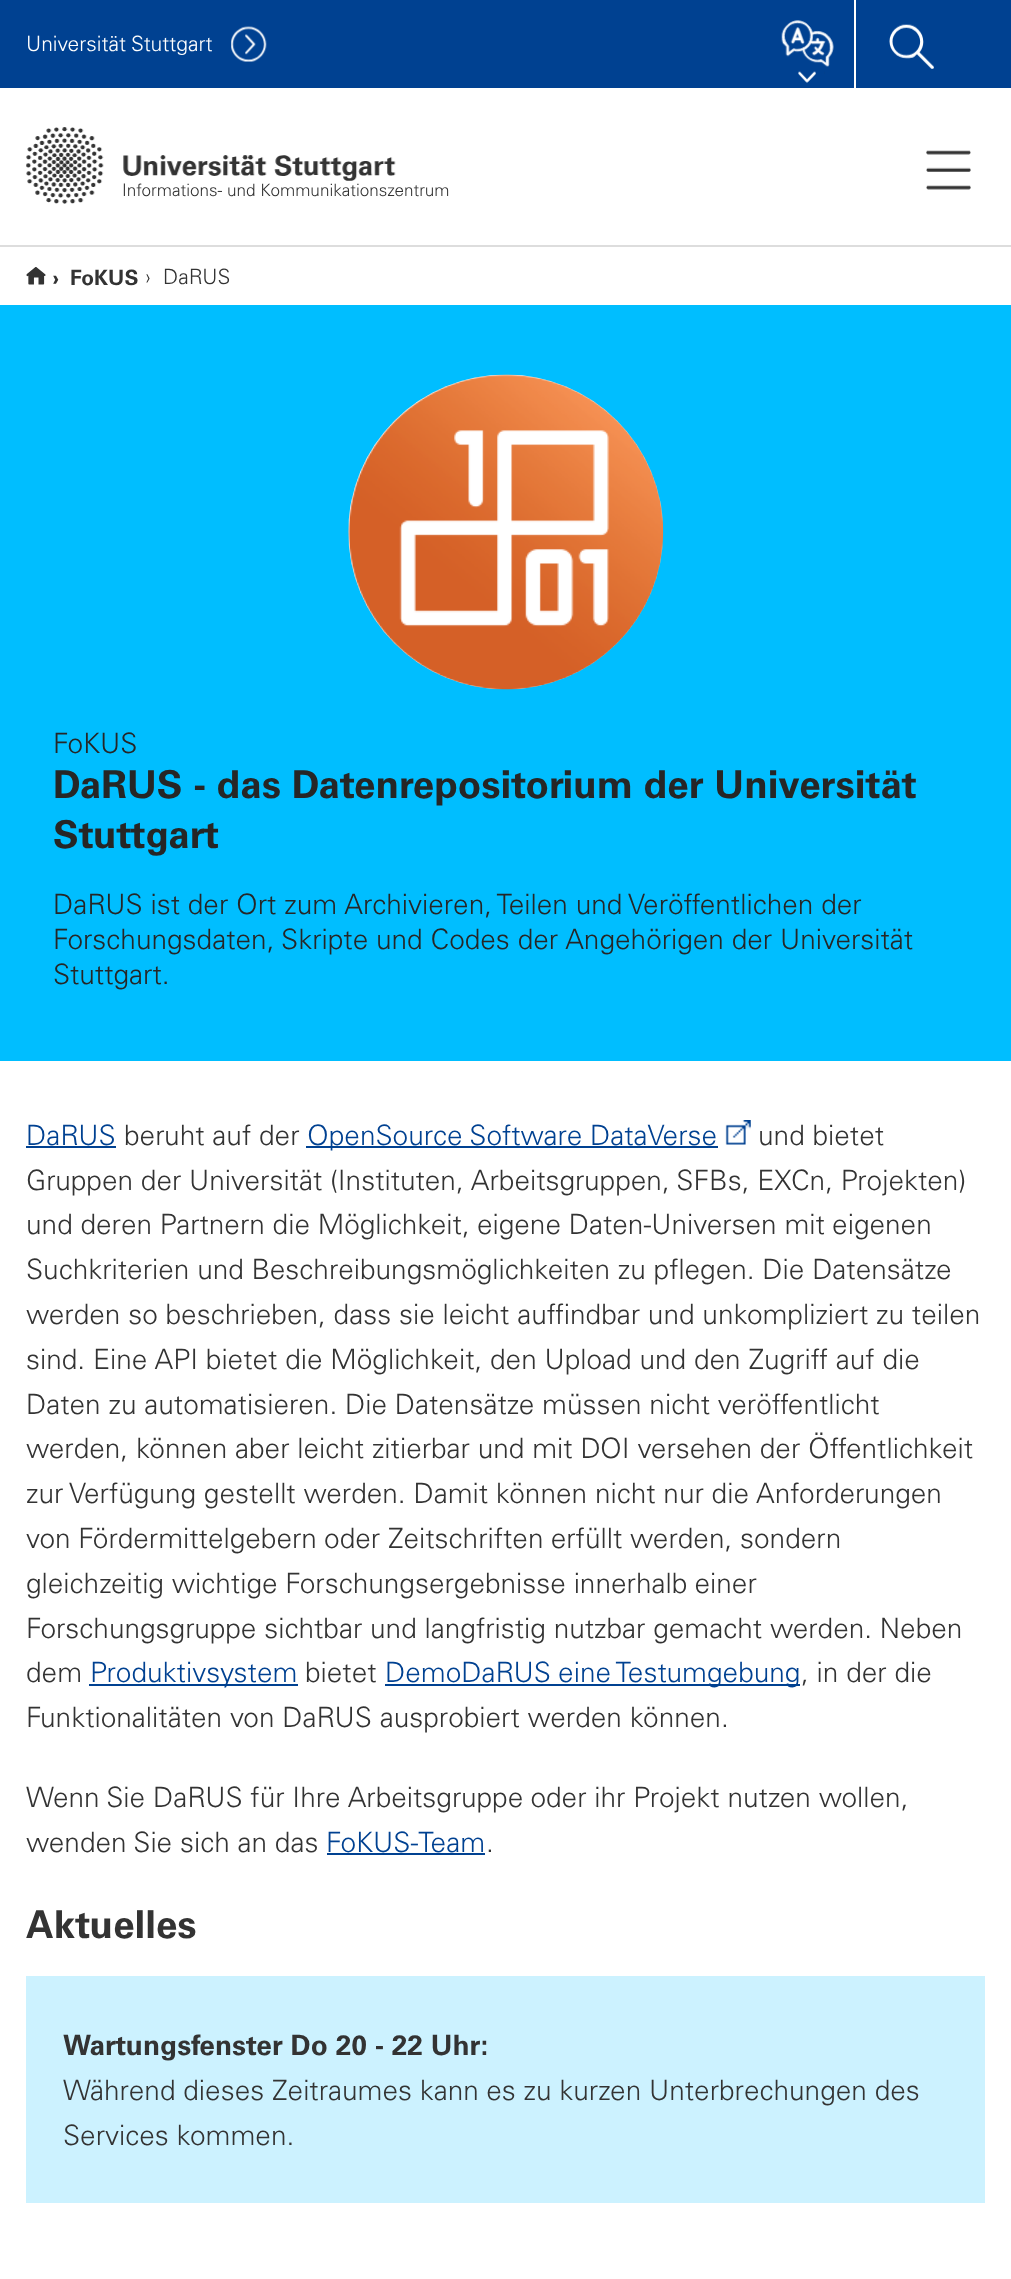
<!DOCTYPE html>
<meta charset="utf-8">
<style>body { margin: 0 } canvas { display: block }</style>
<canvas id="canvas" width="1011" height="2279"></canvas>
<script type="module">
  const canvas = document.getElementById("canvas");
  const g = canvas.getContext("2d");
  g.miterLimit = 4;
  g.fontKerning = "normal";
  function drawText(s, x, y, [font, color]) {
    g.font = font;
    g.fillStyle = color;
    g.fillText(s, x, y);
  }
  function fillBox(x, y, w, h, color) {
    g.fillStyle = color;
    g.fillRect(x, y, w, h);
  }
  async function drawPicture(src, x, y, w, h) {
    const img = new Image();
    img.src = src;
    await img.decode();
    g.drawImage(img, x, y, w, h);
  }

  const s1 = ["300 21px 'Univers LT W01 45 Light'", "#FFFFFF"];
  const s2 = ["300 17.1px 'Univers LT W01 45 Light'", "#333333"];
  const s3 = ["bold 21px 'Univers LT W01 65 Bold'", "#333333"];
  const s4 = ["300 21px 'Univers LT W01 45 Light'", "#333333"];
  const s5 = ["300 28px 'Univers LT W01 45 Light'", "#262626"];
  const s6 = ["bold 38.5px 'Univers LT W01 65 Bold'", "#262626"];
  const s7 = ["300 28px 'Univers LT W01 45 Light'", "#004191"];
  const s8 = ["300 28px 'Univers LT W01 45 Light'", "#333333"];
  const s9 = ["bold 38.5px 'Univers LT W01 65 Bold'", "#333333"];
  const s10 = ["bold 28px 'Univers LT W01 65 Bold'", "#333333"];

  fillBox(0, 0, 1011, 2279, "#FFFFFF");
  fillBox(0, 0, 1011, 88, "#004191");
  drawText("Universität Stuttgart", 26, 51, s1);
  await drawPicture("pic1.png", 231, 26, 36, 36);
  await drawPicture("pic2.png", 781, 20, 53, 47);
  await drawPicture("pic3.png", 798, 71, 27, 12);
  fillBox(854, 0, 2, 88, "#FFFFFF");
  await drawPicture("pic4.png", 889, 24, 45, 45);
  await drawPicture("pic5.png", 926, 150, 45, 40);
  await drawPicture("pic6.png", 26, 127, 370, 77);
  drawText("Informations- und Kommunikationszentrum", 122, 196, s2);
  fillBox(0, 245, 1011, 2, "#DDDDDD");
  await drawPicture("pic7.png", 26, 267, 20, 18);
  drawText("›", 53, 285, s3);
  drawText("FoKUS", 70, 285, s3);
  drawText("›", 145, 284, s4);
  drawText("DaRUS", 163, 284, s4);
  fillBox(0, 305, 1011, 756, "#00BEFF");
  await drawPicture("pic8.png", 348, 374, 316, 316);
  drawText("FoKUS", 53, 753, s5);
  drawText("DaRUS - das Datenrepositorium der Universität", 53, 798, s6);
  drawText("Stuttgart", 53, 848, s6);
  drawText("DaRUS ist der Ort zum Archivieren, Teilen und Veröffentlichen der", 53, 914, s5);
  drawText("Forschungsdaten, Skripte und Codes der Angehörigen der Universität", 53, 949, s5);
  drawText("Stuttgart.", 53, 984, s5);
  drawText("DaRUS", 26, 1145, s7);
  fillBox(26, 1146, 90, 2, "#004191");
  drawText("beruht auf der", 124, 1145, s8);
  fillBox(306, 1146, 412, 2, "#004191");
  drawText("OpenSource Software DataVerse", 307, 1145, s7);
  await drawPicture("pic9.png", 725, 1120, 26, 25);
  drawText("und bietet", 758, 1145, s8);
  drawText("Gruppen der Universität (Instituten, Arbeitsgruppen, SFBs, EXCn, Projekten)", 26, 1190, s8);
  drawText("und deren Partnern die Möglichkeit, eigene Daten-Universen mit eigenen", 26, 1234, s8);
  drawText("Suchkriterien und Beschreibungsmöglichkeiten zu pflegen. Die Datensätze", 26, 1279, s8);
  drawText("werden so beschrieben, dass sie leicht auffindbar und unkompliziert zu teilen", 26, 1324, s8);
  drawText("sind. Eine API bietet die Möglichkeit, den Upload und den Zugriff auf die", 26, 1369, s8);
  drawText("Daten zu automatisieren. Die Datensätze müssen nicht veröffentlicht", 26, 1414, s8);
  drawText("werden, können aber leicht zitierbar und mit DOI versehen der Öffentlichkeit", 26, 1458, s8);
  drawText("zur Verfügung gestellt werden. Damit können nicht nur die Anforderungen", 26, 1503, s8);
  drawText("von Fördermittelgebern oder Zeitschriften erfüllt werden, sondern", 26, 1548, s8);
  drawText("gleichzeitig wichtige Forschungsergebnisse innerhalb einer", 26, 1593, s8);
  drawText("Forschungsgruppe sichtbar und langfristig nutzbar gemacht werden. Neben", 26, 1638, s8);
  drawText("dem", 26, 1682, s8);
  fillBox(89, 1684, 209, 2, "#004191");
  drawText("Produktivsystem", 90, 1682, s7);
  drawText("bietet", 305, 1682, s8);
  fillBox(385, 1684, 415, 2, "#004191");
  drawText("DemoDaRUS eine Testumgebung", 385, 1682, s7);
  drawText(", in der die", 801, 1682, s8);
  drawText("Funktionalitäten von DaRUS ausprobiert werden können.", 26, 1727, s8);
  drawText("Wenn Sie DaRUS für Ihre Arbeitsgruppe oder ihr Projekt nutzen wollen,", 26, 1807, s8);
  drawText("wenden Sie sich an das", 26, 1852, s8);
  drawText("FoKUS-Team", 326, 1852, s7);
  fillBox(327, 1853, 158, 2, "#004191");
  drawText(".", 486, 1852, s8);
  drawText("Aktuelles", 26, 1938, s9);
  fillBox(26, 1976, 959, 227, "#CCF2FF");
  drawText("Wartungsfenster Do 20 - 22 Uhr:", 63, 2055, s10);
  drawText("Während dieses Zeitraumes kann es zu kurzen Unterbrechungen des", 63, 2100, s8);
  drawText("Services kommen.", 63, 2145, s8);
</script>
